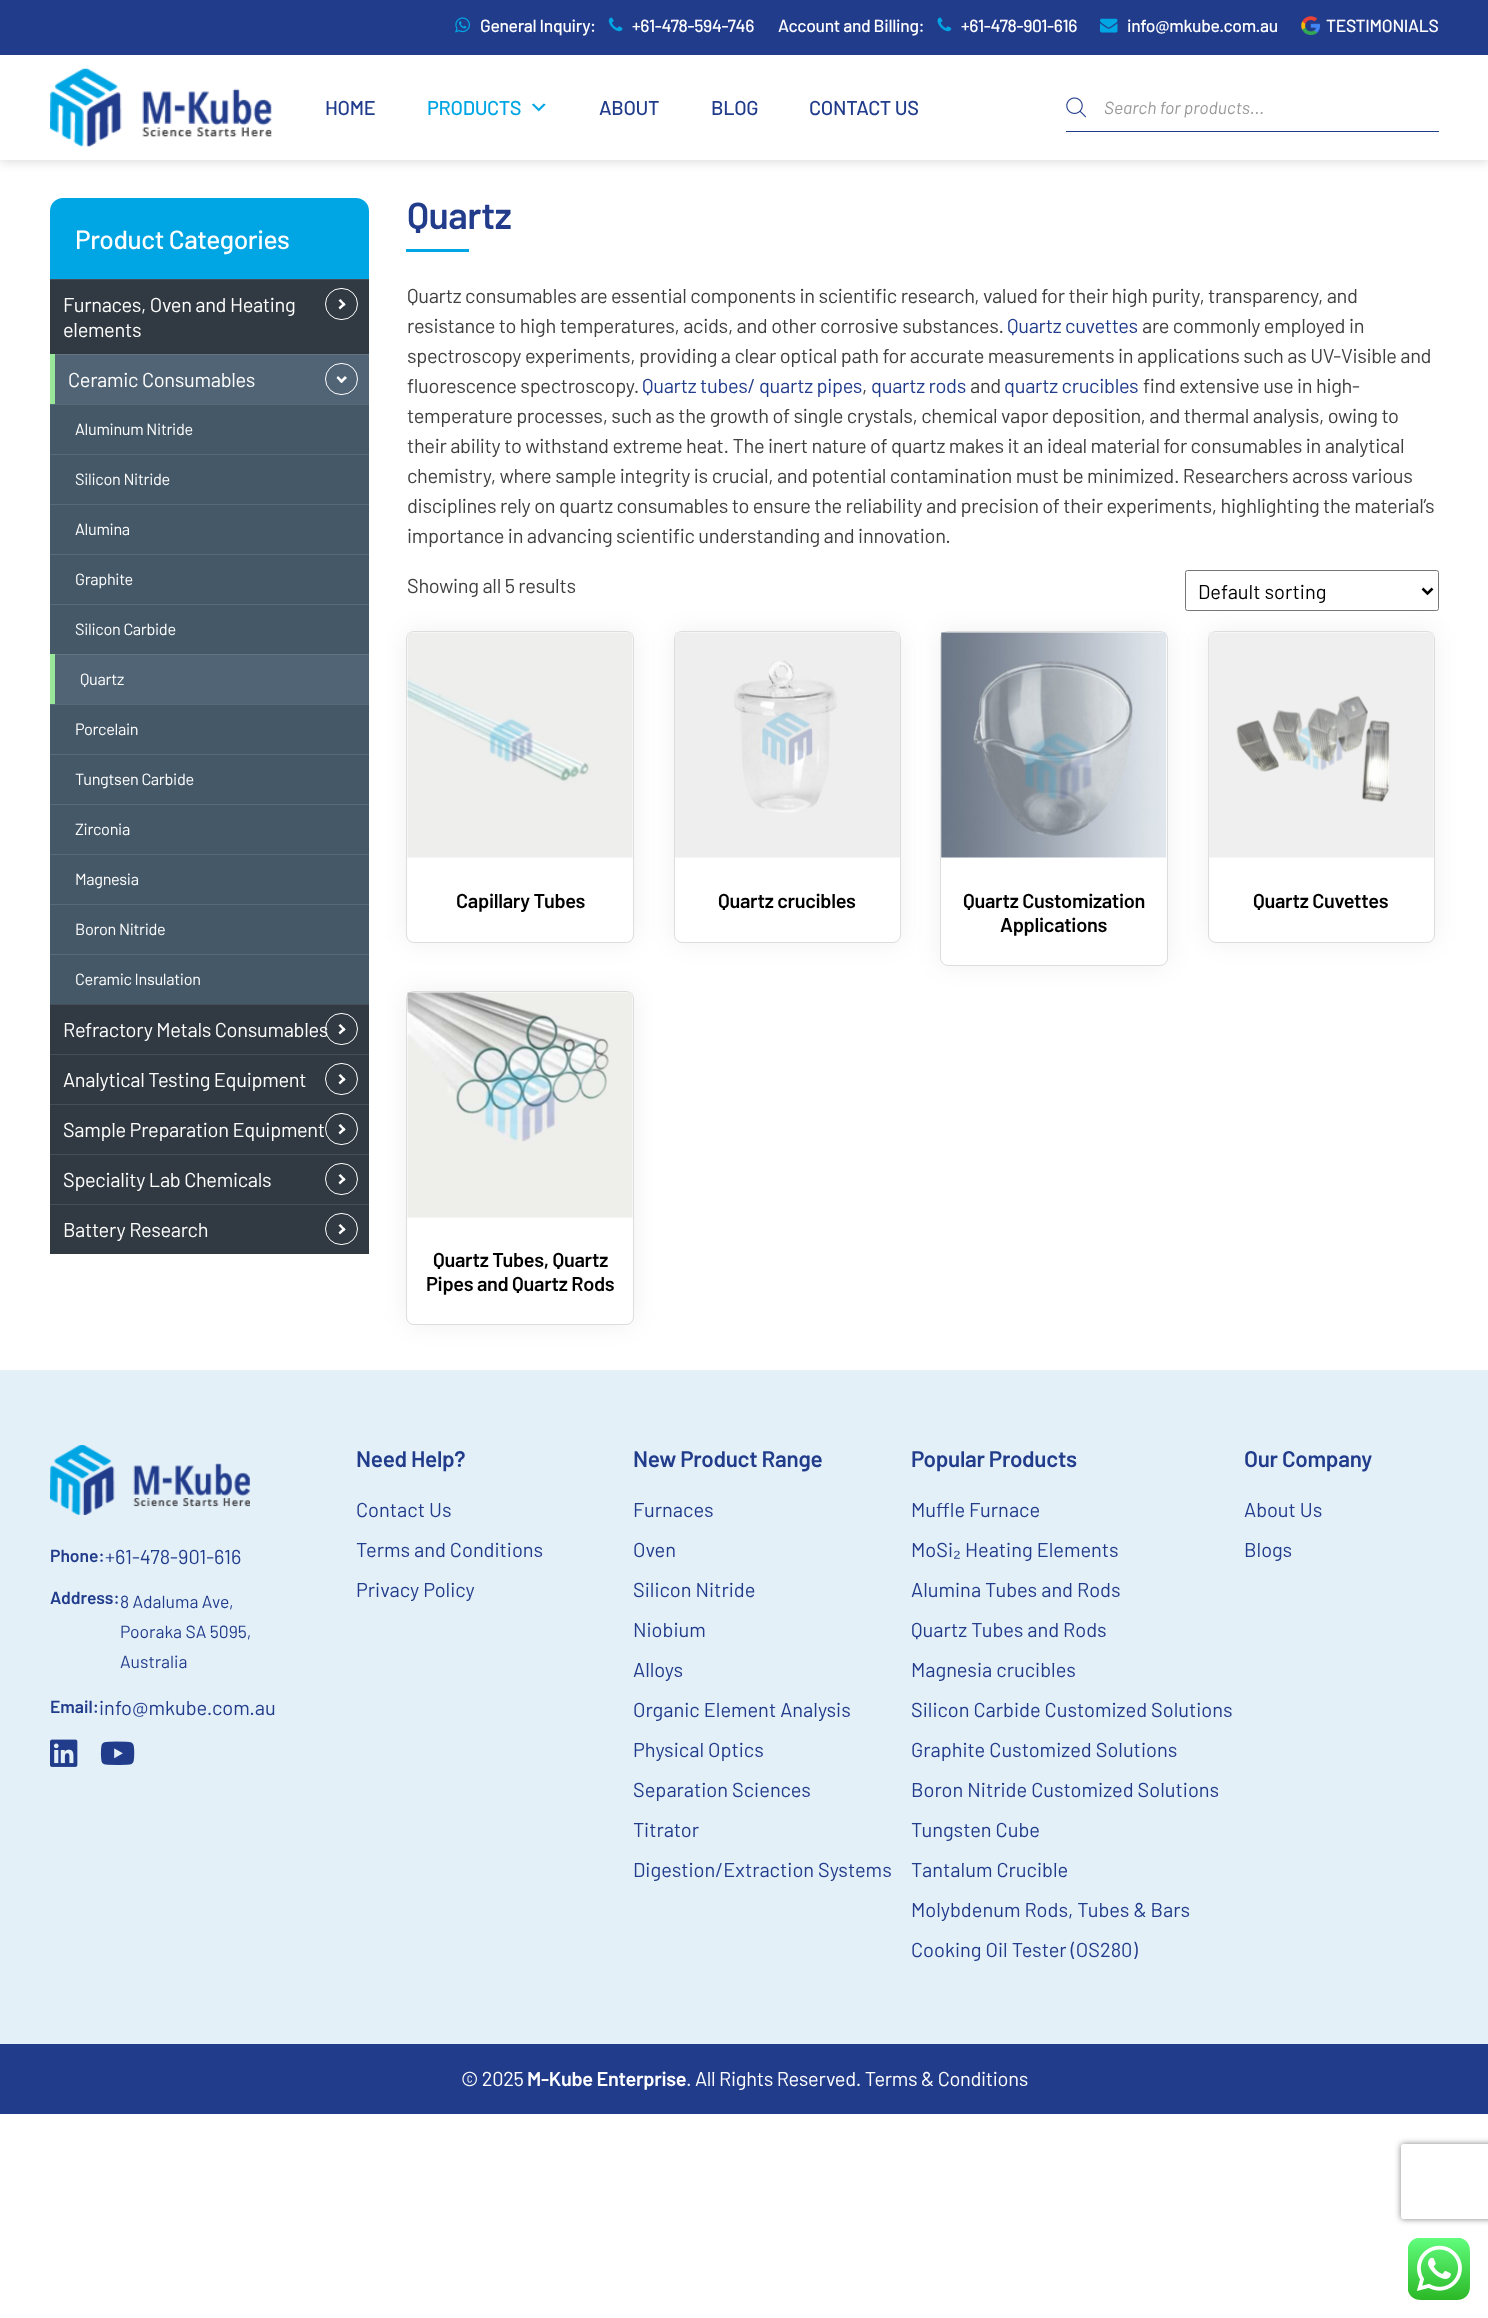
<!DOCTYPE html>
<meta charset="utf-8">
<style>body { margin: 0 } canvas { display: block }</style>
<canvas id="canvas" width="1488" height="2318"></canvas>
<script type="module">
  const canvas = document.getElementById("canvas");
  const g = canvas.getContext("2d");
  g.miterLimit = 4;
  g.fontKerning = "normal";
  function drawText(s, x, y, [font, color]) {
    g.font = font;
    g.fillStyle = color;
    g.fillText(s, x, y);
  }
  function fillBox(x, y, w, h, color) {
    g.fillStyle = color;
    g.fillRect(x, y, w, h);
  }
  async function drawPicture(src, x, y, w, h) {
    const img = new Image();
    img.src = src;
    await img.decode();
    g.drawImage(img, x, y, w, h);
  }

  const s1 = ["500 17.5px Barlow", "#FFFFFF"];
  const s2 = ["500 20px Barlow", "#223C8C"];
  const s3 = ["500 20px Barlow", "#00A6E4"];
  const s4 = ["italic 17.5px Barlow", "#999999"];
  const s5 = ["500 26.25px Barlow", "#FFFFFF"];
  const s6 = ["20px Barlow", "#FFFFFF"];
  const s7 = ["16.25px Barlow", "#FFFFFF"];
  const s8 = ["600 37.5px Barlow", "#223C8C"];
  const s9 = ["20px Barlow", "#404040"];
  const s10 = ["20px Barlow", "#223C8C"];
  const s11 = ["20px Barlow", "#000000"];
  const s12 = ["600 20px Barlow", "#000000"];
  const s13 = ["600 22.5px Barlow", "#223C8C"];
  const s14 = ["20px Liberation Sans", "#223C8C"];
  const s15 = ["600 17.5px Barlow", "#223C8C"];
  const s16 = ["17.5px Barlow", "#223C8C"];
  const s17 = ["600 20px Barlow", "#FFFFFF"];

  fillBox(0, 0, 1488, 2318, "#FFFFFF");
  g.fillStyle = "rgba(50, 50, 50, 0.2)";
  g.filter = "blur(6px)";
  g.beginPath();
  g.rect(0, 0, 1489, 161);
  g.fill();
  g.filter = "none";
  fillBox(0, 55, 1488, 105, "#FFFFFF");
  fillBox(0, 0, 1488, 55, "#223C8C");
  await drawPicture("pic1.png", 455, 17, 15, 16);
  g.letterSpacing = "-0.3px";
  drawText("General Inquiry:", 480, 32, s1);
  await drawPicture("pic2.png", 608, 17, 15, 15);
  drawText("+61-478-594-746", 632, 32, s1);
  drawText("Account and Billing:", 778, 32, s1);
  await drawPicture("pic3.png", 937, 17, 15, 15);
  drawText("+61-478-901-616", 961, 32, s1);
  await drawPicture("pic4.png", 1100, 18, 18, 15);
  drawText("info@mkube.com.au", 1127, 32, s1);
  await drawPicture("pic5.png", 1301, 16, 19, 19);
  drawText("TESTIMONIALS", 1326, 32, s1);
  await drawPicture("pic6.png", 50, 68, 222, 79);
  drawText("HOME", 325, 115, s2);
  drawText("PRODUCTS", 427, 115, s3);
  await drawPicture("pic7.png", 531, 103, 15, 9);
  drawText("ABOUT", 599, 115, s2);
  drawText("BLOG", 711, 115, s2);
  drawText("CONTACT US", 809, 115, s2);
  await drawPicture("pic8.png", 1066, 97, 20, 21);
  fillBox(1066, 131, 373, 1, "#223C8C");
  g.letterSpacing = "0px";
  drawText("Search for products...", 1104, 114, s4);
  g.fillStyle = "#00A6E4";
  g.beginPath();
  g.roundRect(50, 198, 319, 81, [13, 13, 0, 0]);
  g.fill();
  g.letterSpacing = "-0.4px";
  drawText("Product Categories", 75, 249, s5);
  fillBox(50, 280, 319, 74, "#313A42");
  fillBox(50, 279, 319, 1, "#464E55");
  g.letterSpacing = "-0.3px";
  drawText("Furnaces, Oven and Heating", 63, 312, s6);
  g.beginPath();
  g.roundRect(325.5, 288.5, 32, 31, 15.5);
  g.strokeStyle = "#FFFFFF";
  g.stroke();
  g.beginPath();
  g.moveTo(344, 306);
  g.lineTo(338.5, 300.5);
  g.lineTo(340.5, 299);
  g.lineTo(345.5, 304.5);
  g.closePath();
  g.fill();
  g.beginPath();
  g.moveTo(340, 309.5);
  g.lineTo(338.5, 307.5);
  g.lineTo(344, 302.5);
  g.lineTo(345.5, 304.5);
  g.closePath();
  g.fill();
  drawText("elements", 63, 337, s6);
  fillBox(55, 355, 314, 49, "#516476");
  fillBox(55, 354, 314, 1, "#627484");
  fillBox(50, 354, 5, 50, "#99E799");
  drawText("Ceramic Consumables", 68, 387, s6);
  g.beginPath();
  g.roundRect(325.5, 363.5, 32, 31, 15.5);
  g.stroke();
  g.beginPath();
  g.moveTo(341.5, 383);
  g.lineTo(336.5, 378);
  g.lineTo(338, 376);
  g.lineTo(343.5, 381.5);
  g.closePath();
  g.fill();
  g.beginPath();
  g.moveTo(341.5, 383);
  g.lineTo(339.5, 381.5);
  g.lineTo(345, 376);
  g.lineTo(347, 378);
  g.closePath();
  g.fill();
  fillBox(50, 405, 319, 49, "#455868");
  fillBox(50, 404, 319, 1, "#586977");
  drawText("Aluminum Nitride", 75, 435, s7);
  fillBox(50, 455, 319, 49, "#455868");
  fillBox(50, 454, 319, 1, "#586977");
  drawText("Silicon Nitride", 75, 485, s7);
  fillBox(50, 505, 319, 49, "#455868");
  fillBox(50, 504, 319, 1, "#586977");
  drawText("Alumina", 75, 535, s7);
  g.fillStyle = "rgba(0, 0, 0, 0.06)";
  g.filter = "blur(12.5px)";
  g.beginPath();
  g.roundRect(406, 631, 228, 312, 8);
  g.fill();
  g.filter = "none";
  fillBox(50, 555, 319, 49, "#455868");
  fillBox(50, 554, 319, 1, "#586977");
  drawText("Graphite", 75, 585, s7);
  fillBox(50, 605, 319, 49, "#455868");
  fillBox(50, 604, 319, 1, "#586977");
  drawText("Silicon Carbide", 75, 635, s7);
  fillBox(55, 655, 314, 49, "#516476");
  fillBox(55, 654, 314, 1, "#627484");
  fillBox(50, 654, 5, 50, "#99E799");
  drawText("Quartz", 80, 685, s7);
  fillBox(50, 705, 319, 49, "#455868");
  fillBox(50, 704, 319, 1, "#586977");
  drawText("Porcelain", 75, 735, s7);
  fillBox(50, 755, 319, 49, "#455868");
  fillBox(50, 754, 319, 1, "#586977");
  drawText("Tungtsen Carbide", 75, 785, s7);
  fillBox(50, 805, 319, 49, "#455868");
  fillBox(50, 804, 319, 1, "#586977");
  drawText("Zirconia", 75, 835, s7);
  fillBox(50, 855, 319, 49, "#455868");
  fillBox(50, 854, 319, 1, "#586977");
  drawText("Magnesia", 75, 885, s7);
  fillBox(50, 1005, 319, 49, "#313A42");
  fillBox(50, 1004, 319, 1, "#464E55");
  fillBox(50, 1055, 319, 49, "#313A42");
  fillBox(50, 1054, 319, 1, "#464E55");
  fillBox(50, 1105, 319, 49, "#313A42");
  fillBox(50, 1104, 319, 1, "#464E55");
  fillBox(50, 1155, 319, 49, "#313A42");
  fillBox(50, 1154, 319, 1, "#464E55");
  fillBox(50, 1205, 319, 49, "#313A42");
  fillBox(50, 1204, 319, 1, "#464E55");
  g.fillStyle = "rgba(0, 0, 0, 0.06)";
  g.filter = "blur(12.5px)";
  g.beginPath();
  g.roundRect(406, 991, 228, 334, 8);
  g.fill();
  g.filter = "none";
  fillBox(50, 905, 319, 49, "#455868");
  fillBox(50, 904, 319, 1, "#586977");
  drawText("Boron Nitride", 75, 935, s7);
  fillBox(50, 955, 319, 49, "#455868");
  fillBox(50, 954, 319, 1, "#586977");
  drawText("Ceramic Insulation", 75, 985, s7);
  drawText("Refractory Metals Consumables", 63, 1037, s6);
  g.beginPath();
  g.roundRect(325.5, 1013.5, 32, 31, 15.5);
  g.stroke();
  g.beginPath();
  g.moveTo(344, 1031);
  g.lineTo(338.5, 1025.5);
  g.lineTo(340.5, 1024);
  g.lineTo(345.5, 1029.5);
  g.closePath();
  g.fill();
  g.beginPath();
  g.moveTo(340, 1034.5);
  g.lineTo(338.5, 1032.5);
  g.lineTo(344, 1027.5);
  g.lineTo(345.5, 1029.5);
  g.closePath();
  g.fill();
  drawText("Analytical Testing Equipment", 63, 1087, s6);
  g.beginPath();
  g.roundRect(325.5, 1063.5, 32, 31, 15.5);
  g.stroke();
  g.beginPath();
  g.moveTo(344, 1081);
  g.lineTo(338.5, 1075.5);
  g.lineTo(340.5, 1074);
  g.lineTo(345.5, 1079.5);
  g.closePath();
  g.fill();
  g.beginPath();
  g.moveTo(340, 1084.5);
  g.lineTo(338.5, 1082.5);
  g.lineTo(344, 1077.5);
  g.lineTo(345.5, 1079.5);
  g.closePath();
  g.fill();
  drawText("Sample Preparation Equipment", 63, 1137, s6);
  g.beginPath();
  g.roundRect(325.5, 1113.5, 32, 31, 15.5);
  g.stroke();
  g.beginPath();
  g.moveTo(344, 1131);
  g.lineTo(338.5, 1125.5);
  g.lineTo(340.5, 1124);
  g.lineTo(345.5, 1129.5);
  g.closePath();
  g.fill();
  g.beginPath();
  g.moveTo(340, 1134.5);
  g.lineTo(338.5, 1132.5);
  g.lineTo(344, 1127.5);
  g.lineTo(345.5, 1129.5);
  g.closePath();
  g.fill();
  drawText("Speciality Lab Chemicals", 63, 1187, s6);
  g.beginPath();
  g.roundRect(325.5, 1163.5, 32, 31, 15.5);
  g.stroke();
  g.beginPath();
  g.moveTo(344, 1181);
  g.lineTo(338.5, 1175.5);
  g.lineTo(340.5, 1174);
  g.lineTo(345.5, 1179.5);
  g.closePath();
  g.fill();
  g.beginPath();
  g.moveTo(340, 1184.5);
  g.lineTo(338.5, 1182.5);
  g.lineTo(344, 1177.5);
  g.lineTo(345.5, 1179.5);
  g.closePath();
  g.fill();
  drawText("Battery Research", 63, 1237, s6);
  g.beginPath();
  g.roundRect(325.5, 1213.5, 32, 31, 15.5);
  g.stroke();
  g.beginPath();
  g.moveTo(344, 1231);
  g.lineTo(338.5, 1225.5);
  g.lineTo(340.5, 1224);
  g.lineTo(345.5, 1229.5);
  g.closePath();
  g.fill();
  g.beginPath();
  g.moveTo(340, 1234.5);
  g.lineTo(338.5, 1232.5);
  g.lineTo(344, 1227.5);
  g.lineTo(345.5, 1229.5);
  g.closePath();
  g.fill();
  g.letterSpacing = "-0.5px";
  drawText("Quartz", 407, 229, s8);
  fillBox(406, 249, 63, 3, "#00A6E4");
  g.letterSpacing = "-0.3px";
  drawText("Quartz consumables are essential components in scientific research, valued for their high purity, transparency, and", 407, 303, s9);
  drawText("resistance to high temperatures, acids, and other corrosive substances.", 407, 333, s9);
  drawText("Quartz cuvettes", 1007, 333, s10);
  drawText("are commonly employed in", 1142, 333, s9);
  drawText("spectroscopy experiments, providing a clear optical path for accurate measurements in applications such as UV-Visible and", 407, 363, s9);
  drawText("fluorescence spectroscopy.", 407, 393, s9);
  drawText("Quartz tubes/ quartz pipes", 642, 393, s10);
  drawText(",", 862, 393, s9);
  drawText("quartz rods", 871, 393, s10);
  drawText("and", 970, 393, s9);
  drawText("quartz crucibles", 1004, 393, s10);
  drawText("find extensive use in high-", 1143, 393, s9);
  drawText("temperature processes, such as the growth of single crystals, chemical vapor deposition, and thermal analysis, owing to", 407, 423, s9);
  drawText("their ability to withstand extreme heat. The inert nature of quartz makes it an ideal material for consumables in analytical", 407, 453, s9);
  drawText("chemistry, where sample integrity is crucial, and potential contamination must be minimized. Researchers across various", 407, 483, s9);
  drawText("disciplines rely on quartz consumables to ensure the reliability and precision of their experiments, highlighting the material’s", 407, 513, s9);
  drawText("importance in advancing scientific understanding and innovation.", 407, 543, s9);
  drawText("Showing all 5 results", 407, 593, s9);
  g.beginPath();
  g.roundRect(1185.5, 570.5, 253, 40, 2);
  g.strokeStyle = "#767676";
  g.stroke();
  g.beginPath();
  g.moveTo(1422.5, 588.5);
  g.lineTo(1427.5, 593.5);
  g.lineTo(1432.5, 588.5);
  g.strokeStyle = "#000000";
  g.lineWidth = 2.5;
  g.stroke();
  g.letterSpacing = "0px";
  drawText("Default sorting", 1198, 599, s11);
  g.fillStyle = "#FFFFFF";
  g.beginPath();
  g.roundRect(406.5, 631.5, 227, 311, 7.5);
  g.fill();
  g.strokeStyle = "#DDDDDD";
  g.lineWidth = 1;
  g.stroke();
  await drawPicture("pic9.png", 407, 632, 226, 226);
  g.letterSpacing = "-0.3px";
  drawText("Capillary Tubes", 456, 908, s12);
  g.fillStyle = "rgba(0, 0, 0, 0.06)";
  g.filter = "blur(12.5px)";
  g.beginPath();
  g.roundRect(674, 631, 227, 312, 8);
  g.fill();
  g.filter = "none";
  g.fillStyle = "#FFFFFF";
  g.beginPath();
  g.roundRect(674.5, 631.5, 226, 311, 7.5);
  g.fill();
  g.stroke();
  await drawPicture("pic10.png", 675, 632, 225, 226);
  drawText("Quartz crucibles", 718, 908, s12);
  g.fillStyle = "rgba(0, 0, 0, 0.06)";
  g.filter = "blur(12.5px)";
  g.beginPath();
  g.roundRect(940, 631, 228, 335, 8);
  g.fill();
  g.filter = "none";
  g.fillStyle = "#FFFFFF";
  g.beginPath();
  g.roundRect(940.5, 631.5, 227, 334, 7.5);
  g.fill();
  g.stroke();
  await drawPicture("pic11.png", 941, 632, 226, 226);
  drawText("Quartz Customization", 963, 908, s12);
  drawText("Applications", 1000, 932, s12);
  g.fillStyle = "rgba(0, 0, 0, 0.06)";
  g.filter = "blur(12.5px)";
  g.beginPath();
  g.roundRect(1208, 631, 227, 312, 8);
  g.fill();
  g.filter = "none";
  g.fillStyle = "#FFFFFF";
  g.beginPath();
  g.roundRect(1208.5, 631.5, 226, 311, 7.5);
  g.fill();
  g.stroke();
  await drawPicture("pic12.png", 1208, 632, 226, 226);
  drawText("Quartz Cuvettes", 1253, 908, s12);
  g.fillStyle = "#FFFFFF";
  g.beginPath();
  g.roundRect(406.5, 991.5, 227, 333, 7.5);
  g.fill();
  g.stroke();
  await drawPicture("pic13.png", 407, 992, 226, 226);
  drawText("Quartz Tubes, Quartz", 433, 1267, s12);
  drawText("Pipes and Quartz Rods", 426, 1291, s12);
  fillBox(0, 1370, 1488, 674, "#E3F0F8");
  drawText("Need Help?", 356, 1467, s13);
  g.letterSpacing = "0px";
  drawText("Contact Us", 356, 1517, s10);
  drawText("Terms and Conditions", 356, 1557, s10);
  drawText("Privacy Policy", 356, 1597, s10);
  g.letterSpacing = "-0.3px";
  drawText("New Product Range", 633, 1467, s13);
  g.letterSpacing = "0px";
  drawText("Furnaces", 633, 1517, s10);
  drawText("Oven", 633, 1557, s10);
  drawText("Silicon Nitride", 633, 1597, s10);
  drawText("Niobium", 633, 1637, s10);
  drawText("Alloys", 633, 1677, s10);
  drawText("Organic Element Analysis", 633, 1717, s10);
  drawText("Physical Optics", 633, 1757, s10);
  drawText("Separation Sciences", 633, 1797, s10);
  drawText("Titrator", 633, 1837, s10);
  drawText("Digestion/Extraction Systems", 633, 1877, s10);
  g.letterSpacing = "-0.3px";
  drawText("Popular Products", 911, 1467, s13);
  g.letterSpacing = "0px";
  drawText("Muffle Furnace", 911, 1517, s10);
  drawText("MoSi", 911, 1557, s10);
  drawText("₂", 953, 1557, s14);
  drawText("Heating Elements", 965, 1557, s10);
  drawText("Alumina Tubes and Rods", 911, 1597, s10);
  drawText("Quartz Tubes and Rods", 911, 1637, s10);
  drawText("Magnesia crucibles", 911, 1677, s10);
  drawText("Silicon Carbide Customized Solutions", 911, 1717, s10);
  drawText("Graphite Customized Solutions", 911, 1757, s10);
  drawText("Boron Nitride Customized Solutions", 911, 1797, s10);
  drawText("Tungsten Cube", 911, 1837, s10);
  drawText("Tantalum Crucible", 911, 1877, s10);
  drawText("Molybdenum Rods, Tubes & Bars", 911, 1917, s10);
  drawText("Cooking Oil Tester (OS280)", 911, 1957, s10);
  g.letterSpacing = "-0.3px";
  drawText("Our Company", 1244, 1467, s13);
  g.letterSpacing = "0px";
  drawText("About Us", 1244, 1517, s10);
  drawText("Blogs", 1244, 1557, s10);
  await drawPicture("pic14.png", 50, 1445, 200, 70);
  drawText("Phone:", 50, 1562, s15);
  drawText("+61-478-901-616", 105, 1564, s10);
  drawText("Address:", 50, 1604, s15);
  drawText("8 Adaluma Ave,", 120, 1608, s16);
  drawText("Pooraka SA 5095,", 120, 1638, s16);
  drawText("Australia", 120, 1668, s16);
  drawText("Email:", 50, 1713, s15);
  drawText("info@mkube.com.au", 99, 1715, s10);
  await drawPicture("pic15.png", 50, 1739, 28, 28);
  await drawPicture("pic16.png", 100, 1741, 35, 24);
  fillBox(0, 2044, 1488, 70, "#223C8C");
  g.letterSpacing = "-0.3px";
  drawText("© 2025", 461, 2086, s6);
  drawText("M-Kube Enterprise", 527, 2086, s17);
  drawText(". All Rights Reserved. Terms & Conditions", 686, 2086, s6);
  g.save();
  g.beginPath();
  g.moveTo(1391, 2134);
  g.lineTo(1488, 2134);
  g.lineTo(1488, 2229);
  g.lineTo(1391, 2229);
  g.closePath();
  g.moveTo(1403.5, 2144);
  g.lineTo(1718.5, 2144);
  g.bezierCurveTo(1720, 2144, 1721, 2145, 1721, 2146.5);
  g.lineTo(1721, 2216.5);
  g.bezierCurveTo(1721, 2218, 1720, 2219, 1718.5, 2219);
  g.lineTo(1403.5, 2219);
  g.bezierCurveTo(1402, 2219, 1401, 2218, 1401, 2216.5);
  g.lineTo(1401, 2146.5);
  g.bezierCurveTo(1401, 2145, 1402, 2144, 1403.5, 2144);
  g.closePath();
  g.clip("evenodd");
  g.fillStyle = "#808080";
  g.filter = "blur(3px)";
  g.beginPath();
  g.roundRect(1401, 2144, 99, 75, 2.5);
  g.fill();
  g.filter = "none";
  g.restore();
  await drawPicture("pic17.png", 1408, 2238, 62, 62);
</script>
